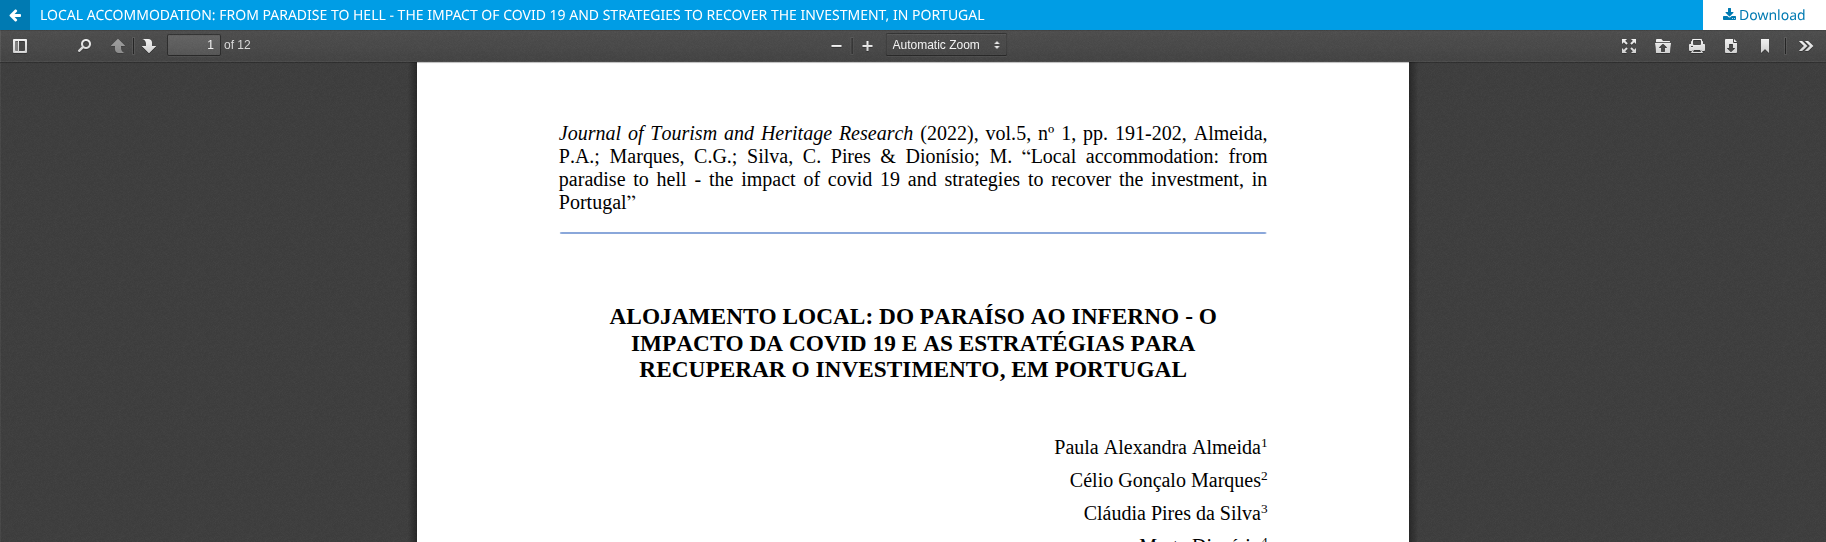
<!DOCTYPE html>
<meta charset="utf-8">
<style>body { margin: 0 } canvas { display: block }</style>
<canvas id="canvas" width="1826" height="542"></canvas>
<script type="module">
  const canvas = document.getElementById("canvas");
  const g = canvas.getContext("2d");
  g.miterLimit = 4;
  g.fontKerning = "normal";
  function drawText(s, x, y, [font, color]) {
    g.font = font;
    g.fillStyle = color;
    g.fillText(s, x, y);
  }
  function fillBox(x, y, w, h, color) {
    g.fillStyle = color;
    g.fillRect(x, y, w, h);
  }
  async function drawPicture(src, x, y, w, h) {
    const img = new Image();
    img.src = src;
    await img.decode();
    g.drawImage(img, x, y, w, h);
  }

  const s1 = ["14px Noto Sans", "#FFFFFF"];
  const s2 = ["14px Noto Sans", "#007AB2"];

  fillBox(0, 0, 1826, 542, "#FFFFFF");
  fillBox(30, 0, 1673, 30, "#009DE5");
  fillBox(0, 0, 30, 30, "#007AB2");
  await drawPicture("pic1.png", 9, 9, 12, 13);
  drawText("LOCAL ACCOMMODATION: FROM PARADISE TO HELL - THE IMPACT OF COVID 19 AND STRATEGIES TO RECOVER THE INVESTMENT, IN PORTUGAL", 40, 20, s1);
  await drawPicture("pic2.png", 1723, 8, 13, 12);
  drawText("Download", 1739, 20, s2);
  await drawPicture("pic3.png", 0, 30, 1826, 512);
</script>
